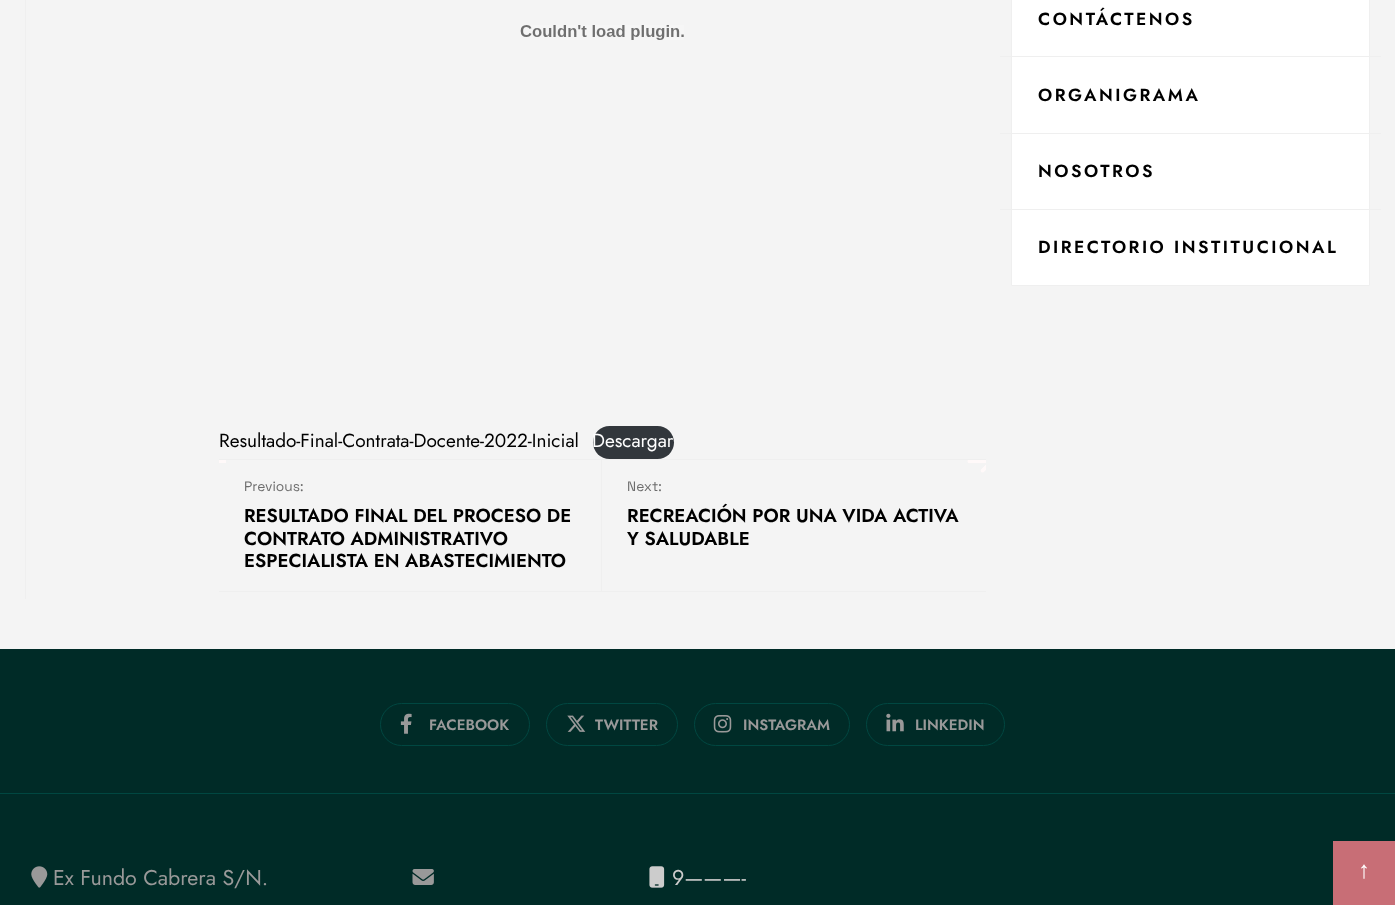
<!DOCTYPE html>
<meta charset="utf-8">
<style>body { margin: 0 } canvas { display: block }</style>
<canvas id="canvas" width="1395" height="905"></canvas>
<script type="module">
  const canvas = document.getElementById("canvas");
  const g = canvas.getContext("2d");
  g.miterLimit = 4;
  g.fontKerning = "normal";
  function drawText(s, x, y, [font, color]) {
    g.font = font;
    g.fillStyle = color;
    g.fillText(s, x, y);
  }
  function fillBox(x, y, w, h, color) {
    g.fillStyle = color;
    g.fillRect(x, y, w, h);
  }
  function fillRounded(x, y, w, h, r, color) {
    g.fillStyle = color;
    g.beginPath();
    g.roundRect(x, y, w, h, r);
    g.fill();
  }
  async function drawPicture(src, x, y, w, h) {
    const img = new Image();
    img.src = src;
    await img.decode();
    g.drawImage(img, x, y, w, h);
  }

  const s1 = ["600 17.5px Jost", "#000000"];
  const s2 = ["19px Jost", "#000000"];
  const s3 = ["19px Jost", "#FFFFFF"];
  const s4 = ["13.75px Space Grotesk", "#6D6D6D"];
  const s5 = ["600 18.75px Jost", "#000000"];
  const s6 = ["600 15px Jost", "#999999"];
  const s7 = ["21.4px Jost", "#999999"];
  const s8 = ["21.4px Jost", "#CCCCCC"];
  const s9 = ["24px Liberation Serif", "#FFFFFF"];

  fillBox(0, 0, 1395, 905, "#F4F4F4");
  g.fillStyle = "#FFFFFF";
  g.beginPath();
  g.rect(1011.5, -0.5, 358, 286);
  g.fill();
  g.strokeStyle = "#EFEFEF";
  g.stroke();
  g.letterSpacing = "2.5px";
  drawText("CONTÁCTENOS", 1038, 25, s1);
  fillBox(1000, 56, 381, 1, "#EFEFEF");
  drawText("ORGANIGRAMA", 1038, 101, s1);
  fillBox(1000, 133, 381, 1, "#EFEFEF");
  drawText("NOSOTROS", 1038, 177, s1);
  fillBox(1000, 209, 381, 1, "#EFEFEF");
  drawText("DIRECTORIO INSTITUCIONAL", 1038, 253, s1);
  fillBox(25, 0, 1, 599, "#EFEFEF");
  await drawPicture("pic1.png", 520, 25, 164, 15);
  g.letterSpacing = "0px";
  drawText("Resultado-Final-Contrata-Docente-2022-Inicial", 219, 447, s2);
  fillRounded(593, 426, 81, 33, 16.5, "#32373C");
  drawText("Descargar", 592, 447, s3);
  fillBox(219, 459, 767, 1, "#EFEFEF");
  fillBox(219, 591, 767, 1, "#EFEFEF");
  fillBox(601, 460, 1, 131, "#EFEFEF");
  fillBox(219, 460, 7, 3, "#FFF9F9");
  drawText("Previous:", 244, 491, s4);
  drawText("RESULTADO FINAL DEL PROCESO DE", 244, 522, s5);
  drawText("CONTRATO ADMINISTRATIVO", 244, 545, s5);
  drawText("ESPECIALISTA EN ABASTECIMIENTO", 244, 567, s5);
  await drawPicture("pic2.png", 967, 460, 19, 13);
  drawText("Next:", 627, 491, s4);
  drawText("RECREACIÓN POR UNA VIDA ACTIVA", 627, 522, s5);
  drawText("Y SALUDABLE", 627, 545, s5);
  fillBox(0, 649, 1395, 256, "#002B27");
  fillBox(0, 793, 1395, 1, "#004741");
  g.beginPath();
  g.roundRect(380.5, 703.5, 149, 42, 21);
  g.strokeStyle = "#004741";
  g.stroke();
  await drawPicture("pic3.png", 400, 713, 12, 21);
  drawText("FACEBOOK", 429, 730, s6);
  g.beginPath();
  g.roundRect(546.5, 703.5, 131, 42, 21);
  g.stroke();
  await drawPicture("pic4.png", 567, 715, 19, 17);
  drawText("TWITTER", 595, 730, s6);
  g.beginPath();
  g.roundRect(694.5, 703.5, 155, 42, 21);
  g.stroke();
  await drawPicture("pic5.png", 713, 715, 19, 18);
  drawText("INSTAGRAM", 743, 730, s6);
  g.beginPath();
  g.roundRect(866.5, 703.5, 138, 42, 21);
  g.stroke();
  await drawPicture("pic6.png", 886, 713, 18, 19);
  drawText("LINKEDIN", 915, 730, s6);
  await drawPicture("pic7.png", 31, 866, 17, 22);
  drawText("Ex Fundo Cabrera S/N.", 53, 885, s7);
  await drawPicture("pic8.png", 412, 869, 22, 16);
  await drawPicture("pic9.png", 649, 866, 16, 22);
  drawText("9———-", 672, 885, s8);
  fillBox(1333, 841, 62, 64, "#C86E76");
  drawText("↑", 1358, 878, s9);
</script>
